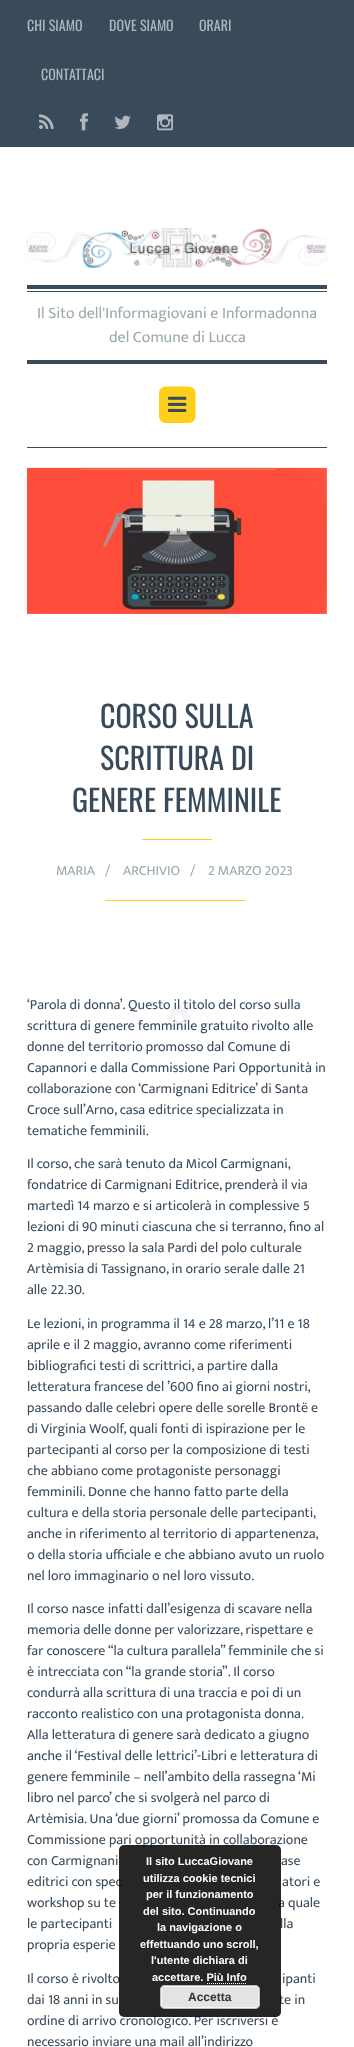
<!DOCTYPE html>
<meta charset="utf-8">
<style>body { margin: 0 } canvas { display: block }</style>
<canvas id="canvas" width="354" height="2047"></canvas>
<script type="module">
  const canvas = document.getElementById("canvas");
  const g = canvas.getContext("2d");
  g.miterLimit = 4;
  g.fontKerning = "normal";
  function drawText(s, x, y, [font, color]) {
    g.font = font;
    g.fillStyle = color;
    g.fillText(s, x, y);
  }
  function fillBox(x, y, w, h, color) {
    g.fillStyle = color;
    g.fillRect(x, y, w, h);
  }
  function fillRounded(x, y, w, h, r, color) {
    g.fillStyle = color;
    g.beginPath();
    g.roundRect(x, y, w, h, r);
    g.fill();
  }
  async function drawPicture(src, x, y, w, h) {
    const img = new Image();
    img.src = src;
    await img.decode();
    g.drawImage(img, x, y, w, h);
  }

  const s1 = ["14px Oswald", "#B0B7BD"];
  const s2 = ["16px Ek Mukta", "#9BAAAB"];
  const s3 = ["30px Oswald", "#394A5A"];
  const s4 = ["14px Ek Mukta", "#9BAAAB"];
  const s5 = ["14px Ek Mukta", "#394A5A"];
  const s6 = ["bold 11px Liberation Sans", "#FFFFFF"];
  const s7 = ["bold 12px Liberation Sans", "#333333"];

  fillBox(0, 0, 354, 2047, "#FFFFFF");
  fillBox(0, 0, 354, 147, "#394A5A");
  drawText("CHI SIAMO", 27, 31, s1);
  drawText("DOVE SIAMO", 109, 31, s1);
  drawText("ORARI", 199, 31, s1);
  drawText("CONTATTACI", 41, 80, s1);
  await drawPicture("pic1.png", 39, 114, 15, 15);
  await drawPicture("pic2.png", 80, 113, 8, 18);
  await drawPicture("pic3.png", 114, 115, 17, 14);
  await drawPicture("pic4.png", 157, 114, 16, 17);
  fillBox(27, 360, 300, 4, "#394A5A");
  fillBox(27, 285, 300, 4, "#394A5A");
  await drawPicture("pic5.png", 27, 228, 300, 40);
  fillBox(27, 291, 300, 1, "#394A5A");
  drawText("Il Sito dell'Informagiovani e Informadonna", 37, 318, s2);
  drawText("del Comune di Lucca", 109, 342, s2);
  fillBox(27, 447, 300, 1, "#394A5A");
  await drawPicture("pic6.png", 159, 386, 37, 38);
  await drawPicture("pic7.png", 168, 396, 19, 16);
  await drawPicture("pic8.png", 27, 467, 300, 147);
  drawText("CORSO SULLA", 100, 728, s3);
  drawText("SCRITTURA DI", 100, 770, s3);
  drawText("GENERE FEMMINILE", 72, 812, s3);
  fillBox(142, 839, 70, 1, "#FFCF1C");
  drawText("MARIA", 56, 875, s4);
  drawText("/", 105, 875, s4);
  drawText("ARCHIVIO", 123, 875, s4);
  drawText("/", 190, 875, s4);
  drawText("2 MARZO 2023", 208, 875, s4);
  fillBox(105, 900, 140, 1, "#FFCF1C");
  drawText("‘Parola di donna’. Questo il titolo del corso sulla", 27, 1009, s5);
  drawText("scrittura di genere femminile gratuito rivolto alle", 27, 1030, s5);
  drawText("donne del territorio promosso dal Comune di", 27, 1051, s5);
  drawText("Capannori e dalla Commissione Pari Opportunità in", 27, 1072, s5);
  drawText("collaborazione con ‘Carmignani Editrice’ di Santa", 27, 1093, s5);
  drawText("Croce sull’Arno, casa editrice specializzata in", 27, 1114, s5);
  drawText("tematiche femminili.", 27, 1135, s5);
  drawText("Il corso, che sarà tenuto da Micol Carmignani,", 27, 1168, s5);
  drawText("fondatrice di Carmignani Editrice, prenderà il via", 27, 1189, s5);
  drawText("martedì 14 marzo e si articolerà in complessive 5", 27, 1210, s5);
  drawText("lezioni di 90 minuti ciascuna che si terranno, fino al", 27, 1231, s5);
  drawText("2 maggio, presso la sala Pardi del polo culturale", 27, 1252, s5);
  drawText("Artèmisia di Tassignano, in orario serale dalle 21", 27, 1273, s5);
  drawText("alle 22.30.", 27, 1294, s5);
  drawText("Le lezioni, in programma il 14 e 28 marzo, l’11 e 18", 27, 1328, s5);
  drawText("aprile e il 2 maggio, avranno come riferimenti", 27, 1349, s5);
  drawText("bibliografici testi di scrittrici, a partire dalla", 27, 1370, s5);
  drawText("letteratura francese del ’600 fino ai giorni nostri,", 27, 1391, s5);
  drawText("passando dalle celebri opere delle sorelle Brontë e", 27, 1412, s5);
  drawText("di Virginia Woolf, quali fonti di ispirazione per le", 27, 1433, s5);
  drawText("partecipanti al corso per la composizione di testi", 27, 1454, s5);
  drawText("che abbiano come protagoniste personaggi", 27, 1475, s5);
  drawText("femminili. Donne che hanno fatto parte della", 27, 1496, s5);
  drawText("cultura e della storia personale delle partecipanti,", 27, 1517, s5);
  drawText("anche in riferimento al territorio di appartenenza,", 27, 1538, s5);
  drawText("o della storia ufficiale e che abbiano avuto un ruolo", 27, 1559, s5);
  drawText("nel loro immaginario o nel loro vissuto.", 27, 1580, s5);
  drawText("Il corso nasce infatti dall’esigenza di scavare nella", 27, 1613, s5);
  drawText("memoria delle donne per valorizzare, rispettare e", 27, 1634, s5);
  drawText("far conoscere “la cultura parallela” femminile che si", 27, 1655, s5);
  drawText("è intrecciata con “la grande storia”. Il corso", 27, 1676, s5);
  drawText("condurrà alla scrittura di una traccia e poi di un", 27, 1697, s5);
  drawText("racconto realistico con una protagonista donna.", 27, 1718, s5);
  drawText("Alla letteratura di genere sarà dedicato a giugno", 27, 1739, s5);
  drawText("anche il ‘Festival delle lettrici’-Libri e letteratura di", 27, 1760, s5);
  drawText("genere femminile – nell’ambito della rassegna ‘Mi", 27, 1781, s5);
  drawText("libro nel parco’ che si svolgerà nel parco di", 27, 1802, s5);
  drawText("Artèmisia. Una ‘due giorni’ promossa da Comune e", 27, 1823, s5);
  drawText("Commissione pari opportunità in collaborazione", 27, 1844, s5);
  drawText("con Carmignani", 27, 1865, s5);
  drawText("ase", 281, 1865, s5);
  drawText("editrici con spec", 27, 1886, s5);
  drawText("atori e", 282, 1886, s5);
  drawText("workshop su te", 27, 1907, s5);
  drawText("a quale", 278, 1907, s5);
  drawText("le partecipanti", 27, 1928, s5);
  drawText("lla", 280, 1928, s5);
  drawText("propria esperie", 27, 1949, s5);
  drawText("Il corso è rivolto", 27, 1983, s5);
  drawText("ipanti", 282, 1983, s5);
  drawText("dai 18 anni in su", 27, 2004, s5);
  drawText("te in", 279, 2004, s5);
  drawText("ordine di arrivo cronologico. Per iscriversi è", 27, 2025, s5);
  drawText("necessario inviare una mail all’indirizzo", 27, 2046, s5);
  await drawPicture("pic9.png", 167, 1005, 24, 24);
  fillRounded(119, 1845, 162, 172, 5, "rgba(0, 0, 0, 0.85)");
  drawText("Il sito LuccaGiovane", 146, 1865, s6);
  drawText("utilizza cookie tecnici", 143, 1882, s6);
  drawText("per il funzionamento", 146, 1898, s6);
  drawText("del sito. Continuando", 143, 1915, s6);
  drawText("la navigazione o", 157, 1931, s6);
  drawText("effettuando uno scroll,", 140, 1948, s6);
  drawText("l'utente dichiara di", 151, 1964, s6);
  drawText("accettare. Più Info", 152, 1981, s6);
  g.beginPath();
  g.moveTo(207, 1983.5);
  g.lineTo(247, 1983.5);
  g.strokeStyle = "#FFFFFF";
  g.setLineDash([1, 1]);
  g.stroke();
  fillRounded(160, 1985, 100, 24, 5, "#E3E3E3");
  g.beginPath();
  g.roundRect(161.5, 1986.5, 97, 21, 3.5);
  g.strokeStyle = "#F6F6F6";
  g.setLineDash([]);
  g.stroke();
  g.beginPath();
  g.roundRect(160.5, 1985.5, 99, 23, 4.5);
  g.strokeStyle = "#BBBBBB";
  g.stroke();
  drawText("Accetta", 188, 2001, s7);
</script>
